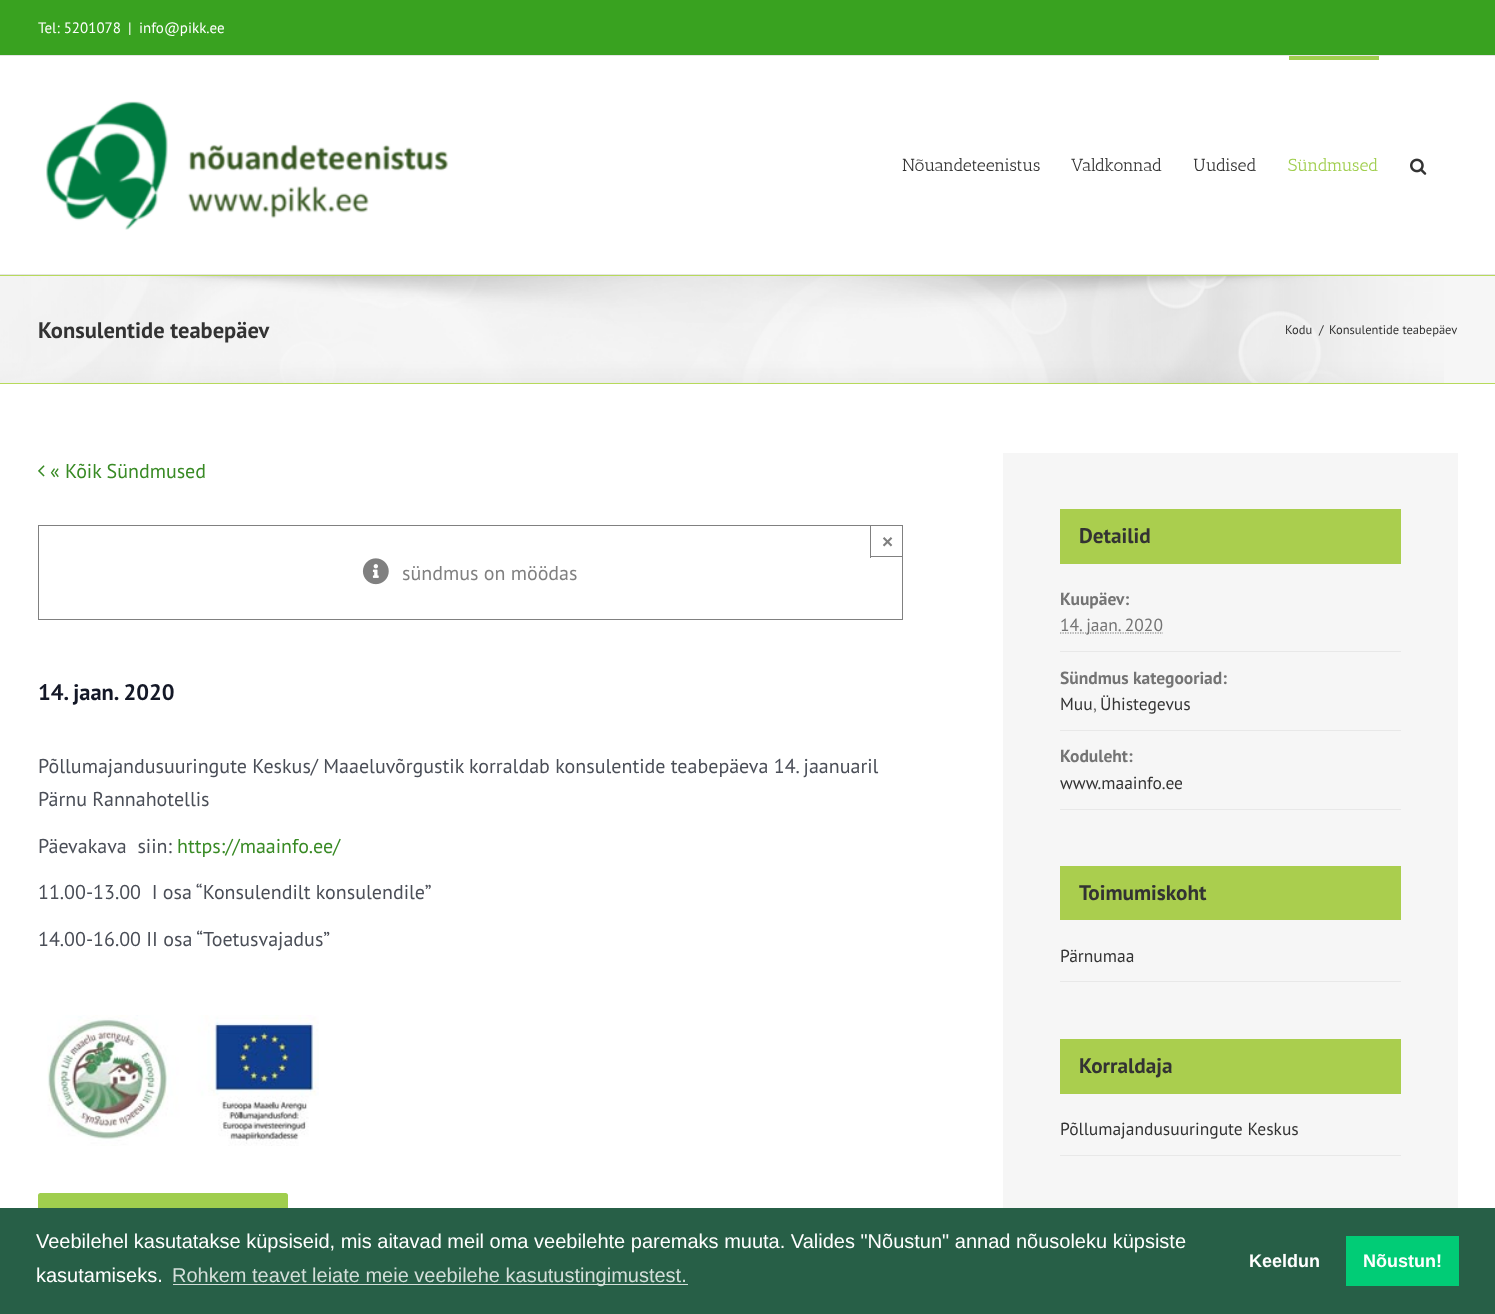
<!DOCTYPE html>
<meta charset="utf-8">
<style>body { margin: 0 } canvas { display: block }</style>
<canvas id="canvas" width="1495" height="1314"></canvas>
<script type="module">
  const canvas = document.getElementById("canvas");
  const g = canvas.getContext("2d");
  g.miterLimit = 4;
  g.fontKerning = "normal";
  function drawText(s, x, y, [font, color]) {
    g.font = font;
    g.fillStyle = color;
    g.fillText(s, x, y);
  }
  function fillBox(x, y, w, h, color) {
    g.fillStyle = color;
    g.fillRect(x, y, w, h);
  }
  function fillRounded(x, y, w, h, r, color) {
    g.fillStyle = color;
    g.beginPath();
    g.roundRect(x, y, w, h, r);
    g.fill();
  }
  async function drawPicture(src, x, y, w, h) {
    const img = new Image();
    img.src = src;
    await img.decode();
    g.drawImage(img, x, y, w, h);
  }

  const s1 = ["15px PT Sans", "#FFFFFF"];
  const s2 = ["17.5px Antic Slab", "#333333"];
  const s3 = ["17.5px Antic Slab", "#A0CE4E"];
  const s4 = ["bold 22.5px PT Sans", "#333333"];
  const s5 = ["12.5px PT Sans", "#333333"];
  const s6 = ["20px PT Sans", "#388A24"];
  const s7 = ["bold 19px Liberation Sans", "#808080"];
  const s8 = ["20px PT Sans", "#808080"];
  const s9 = ["bold 22.5px PT Sans", "#141827"];
  const s10 = ["20px PT Sans", "#4A4E57"];
  const s11 = ["bold 21.25px PT Sans", "#333333"];
  const s12 = ["bold 17.5px PT Sans", "#747474"];
  const s13 = ["17.5px PT Sans", "#747474"];
  const s14 = ["17.5px PT Sans", "#333333"];
  const s15 = ["20px Liberation Sans", "#FFFFFF"];
  const s16 = ["20px Liberation Sans", "#D4DFDA"];
  const s17 = ["bold 18px Liberation Sans", "#FFFFFF"];

  fillBox(0, 0, 1495, 1314, "#FFFFFF");
  fillBox(0, 0, 1495, 55, "#39A220");
  fillBox(0, 55, 1495, 1, "#E5E5E5");
  drawText("Tel: 5201078", 38, 33, s1);
  drawText("|", 128, 33, s1);
  drawText("info@pikk.ee", 139, 33, s1);
  fillBox(0, 274, 1495, 1, "#E5E5E5");
  await drawPicture("pic1.png", 46, 101, 403, 129);
  drawText("Nõuandeteenistus", 902, 171, s2);
  drawText("Valdkonnad", 1071, 171, s2);
  drawText("Uudised", 1193, 171, s2);
  fillBox(1289, 56, 90, 4, "#A0CE4E");
  drawText("Sündmused", 1288, 171, s3);
  await drawPicture("pic2.png", 1410, 158, 17, 17);
  fillBox(0, 276, 1495, 107, "#F6F6F6");
  await drawPicture("pic3.png", 0, 276, 1444, 107);
  fillBox(0, 275, 1495, 1, "#B7DA5B");
  fillBox(0, 383, 1495, 1, "#B7DA5B");
  drawText("Konsulentide teabepäev", 38, 338, s4);
  drawText("Kodu", 1285, 334, s5);
  drawText("/", 1319, 334, s5);
  drawText("Konsulentide teabepäev", 1329, 334, s5);
  await drawPicture("pic4.png", 38, 465, 7, 12);
  drawText("« Kõik Sündmused", 50, 478, s6);
  g.strokeStyle = "#808080";
  g.strokeRect(38.5, 525.5, 864, 94);
  fillBox(870, 556, 33, 1, "#808080");
  fillBox(870, 525, 1, 33, "#808080");
  drawText("×", 882, 548, s7);
  await drawPicture("pic5.png", 362, 558, 27, 27);
  drawText("sündmus on möödas", 402, 580, s8);
  drawText("14. jaan. 2020", 38, 700, s9);
  drawText("Põllumajandusuuringute Keskus/ Maaeluvõrgustik korraldab konsulentide teabepäeva 14. jaanuaril", 38, 773, s10);
  drawText("Pärnu Rannahotellis", 38, 806, s10);
  drawText("Päevakava  siin:", 38, 853, s10);
  drawText("https://maainfo.ee/", 177, 853, s6);
  drawText("11.00-13.00  I osa “Konsulendilt konsulendile”", 38, 899, s10);
  drawText("14.00-16.00 II osa “Toetusvajadus”", 38, 946, s10);
  await drawPicture("pic6.png", 47, 1015, 272, 131);
  fillRounded(38, 1193, 250, 53, 2.5, "#A0CE4E");
  fillBox(1003, 453, 455, 755, "#F6F6F6");
  fillBox(1060, 509, 341, 55, "#AACE4E");
  drawText("Detailid", 1079, 543, s11);
  drawText("Kuupäev:", 1060, 605, s12);
  fillBox(1060, 651, 341, 1, "#E8E8E8");
  g.beginPath();
  g.moveTo(1060, 633);
  g.lineTo(1163, 633);
  g.strokeStyle = "#747474";
  g.lineWidth = 1.2;
  g.setLineDash([1.25, 1.25]);
  g.stroke();
  drawText("14. jaan. 2020", 1060, 631, s13);
  drawText("Sündmus kategooriad:", 1060, 684, s12);
  fillBox(1060, 730, 341, 1, "#E8E8E8");
  drawText("Muu", 1060, 710, s14);
  drawText(",", 1093, 710, s13);
  drawText("Ühistegevus", 1100, 710, s14);
  drawText("Koduleht:", 1060, 762, s12);
  fillBox(1060, 809, 341, 1, "#E8E8E8");
  drawText("www.maainfo.ee", 1060, 789, s14);
  fillBox(1060, 866, 341, 54, "#AACE4E");
  drawText("Toimumiskoht", 1079, 900, s11);
  fillBox(1060, 981, 341, 1, "#E8E8E8");
  drawText("Pärnumaa", 1060, 962, s14);
  fillBox(1060, 1039, 341, 55, "#AACE4E");
  drawText("Korraldaja", 1079, 1073, s11);
  fillBox(1060, 1155, 341, 1, "#E8E8E8");
  drawText("Põllumajandusuuringute Keskus", 1060, 1135, s14);
  fillBox(0, 1208, 1495, 106, "#275F47");
  drawText("Veebilehel kasutatakse küpsiseid, mis aitavad meil oma veebilehte paremaks muuta. Valides \"Nõustun\" annad nõusoleku küpsiste", 36, 1248, s15);
  drawText("kasutamiseks.", 36, 1282, s15);
  fillBox(173, 1284, 515, 1, "#D4DFDA");
  drawText("Rohkem teavet leiate meie veebilehe kasutustingimustest.", 172, 1282, s16);
  drawText("Keeldun", 1249, 1267, s17);
  fillBox(1346, 1236, 113, 50, "#01CC76");
  drawText("Nõustun!", 1363, 1267, s17);
</script>
